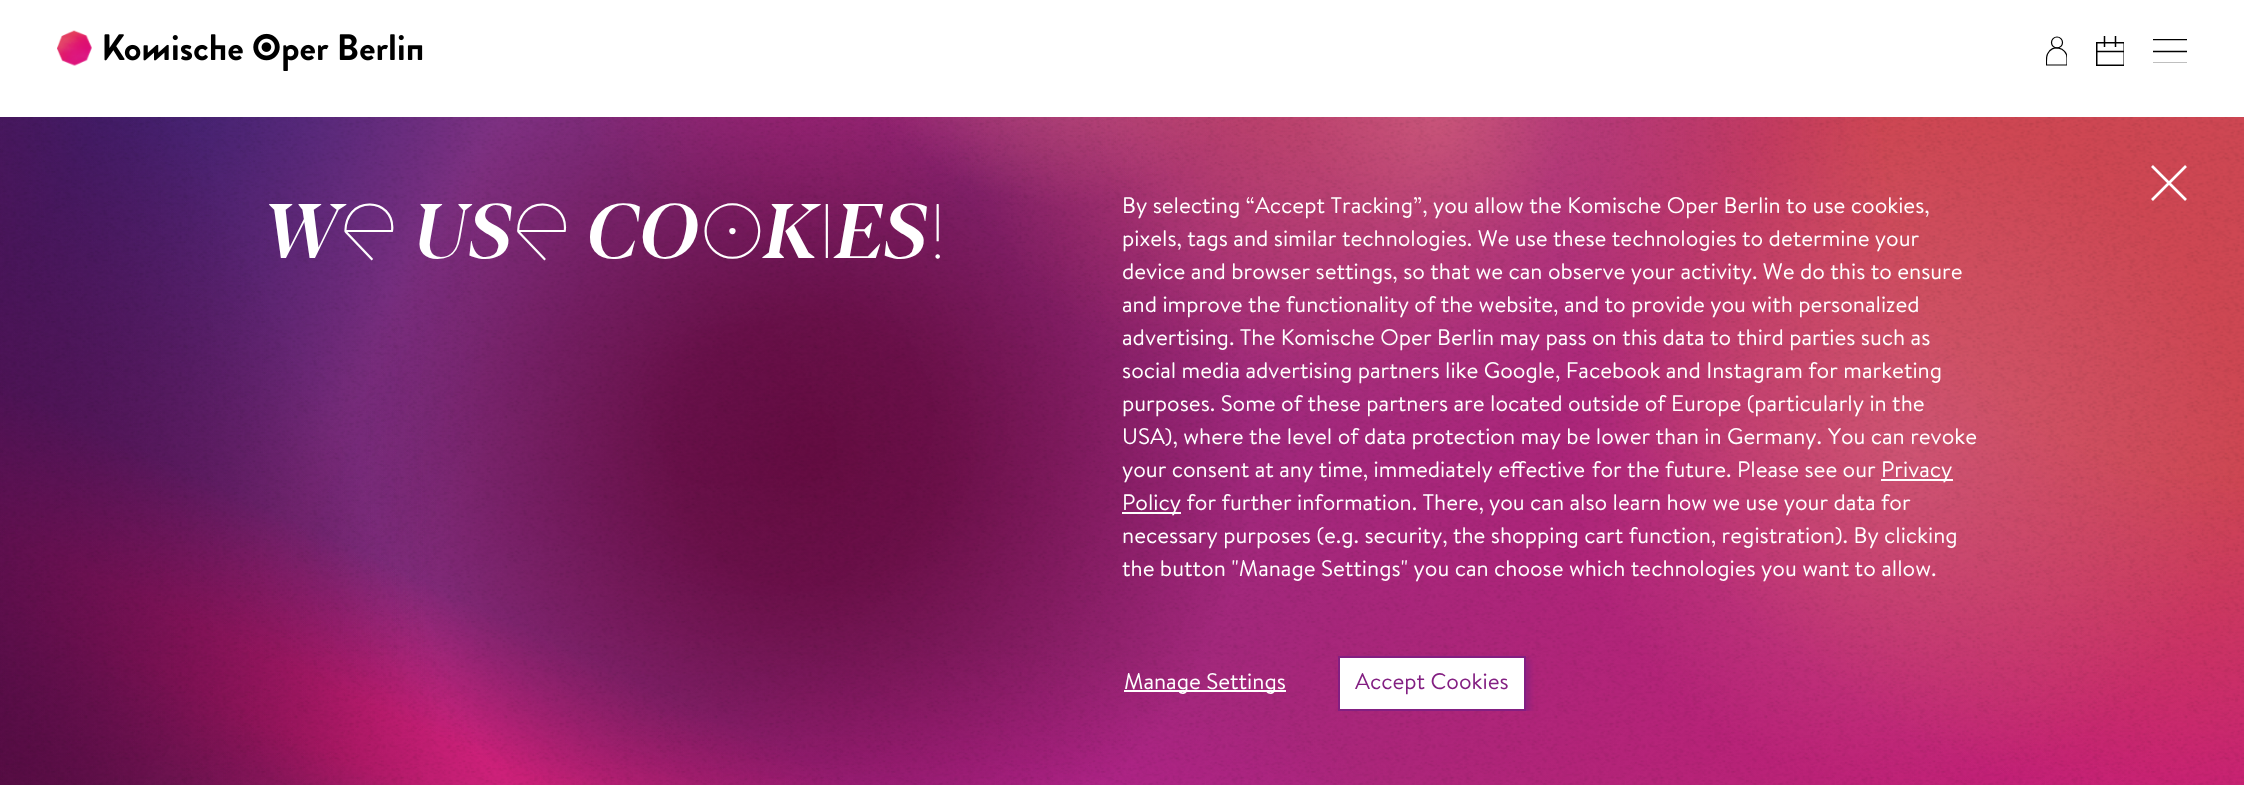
<!DOCTYPE html>
<meta charset="utf-8">
<style>body { margin: 0 } canvas { display: block }</style>
<canvas id="canvas" width="2244" height="785"></canvas>
<script type="module">
  const canvas = document.getElementById("canvas");
  const g = canvas.getContext("2d");
  g.miterLimit = 4;
  g.fontKerning = "none";
  function drawText(s, x, y, [font, color]) {
    g.font = font;
    g.fillStyle = color;
    g.fillText(s, x, y);
  }
  function fillBox(x, y, w, h, color) {
    g.fillStyle = color;
    g.fillRect(x, y, w, h);
  }
  async function drawPicture(src, x, y, w, h) {
    const img = new Image();
    img.src = src;
    await img.decode();
    g.drawImage(img, x, y, w, h);
  }

  const s1 = ["75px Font", "#FFFFFF"];
  const s2 = ["22.5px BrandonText", "#FFFFFF"];
  const s3 = ["22.5px BrandonText", "#831F82"];

  fillBox(0, 0, 2244, 785, "#FFFFFF");
  await drawPicture("pic1.png", 104, 33, 319, 38);
  await drawPicture("pic2.png", 57, 30, 35, 36);
  g.beginPath();
  g.arc(2057, 42.5, 5.5, 0, Math.PI * 2);
  g.strokeStyle = "#000000";
  g.lineWidth = 1.2;
  g.stroke();
  g.save();
  g.beginPath();
  g.rect(2046, 36, 21, 30);
  g.clip();
  g.beginPath();
  g.moveTo(2067, 65);
  g.lineTo(2046.5, 65);
  g.bezierCurveTo(2046.5, 61.5, 2046, 57, 2047.5, 54);
  g.bezierCurveTo(2051.5, 44, 2067, 47, 2067, 58);
  g.closePath();
  g.stroke();
  g.restore();
  g.save();
  g.beginPath();
  g.rect(2096, 36, 28, 30);
  g.clip();
  g.lineWidth = 1.5;
  g.strokeRect(2096.75, 42.75, 27.5, 22.5);
  g.restore();
  g.beginPath();
  g.moveTo(2115.5, 36);
  g.lineTo(2115.5, 47);
  g.moveTo(2104.5, 36);
  g.lineTo(2104.5, 47);
  g.lineWidth = 1.5;
  g.stroke();
  g.save();
  g.beginPath();
  g.rect(2096, 36, 28, 30);
  g.clip();
  g.beginPath();
  g.moveTo(2096, 51.5);
  g.lineTo(2124.5, 51.5);
  g.stroke();
  g.restore();
  g.save();
  g.beginPath();
  g.rect(2153, 39, 34, 24);
  g.clip();
  g.beginPath();
  g.moveTo(2152.5, 63.5);
  g.lineTo(2187, 63.5);
  g.moveTo(2152.5, 51.5);
  g.lineTo(2187, 51.5);
  g.moveTo(2152.5, 39.5);
  g.lineTo(2187, 39.5);
  g.stroke();
  g.restore();
  fillBox(180, 117, 2064, 668, "#C82076");
  await drawPicture("pic3.png", 0, 117, 2244, 668);
  g.beginPath();
  g.moveTo(2152, 166);
  g.lineTo(2186, 200);
  g.moveTo(2186, 166);
  g.lineTo(2152, 200);
  g.strokeStyle = "#FFFFFF";
  g.lineWidth = 2.7;
  g.stroke();
  g.wordSpacing = "-4px";
  drawText("WE USE COOKIES!", 265, 258, s1);
  g.wordSpacing = "0px";
  drawText("By selecting “Accept Tracking”,", 1122, 213, s2);
  drawText("you allow the Komische Oper Berlin to use cookies,", 1433, 213, s2);
  drawText("pixels, tags and similar technologies. We use these technologies to determine your", 1122, 246, s2);
  drawText("device and browser settings, so that we can observe your activity. We", 1122, 279, s2);
  drawText("do this to ensure", 1800, 279, s2);
  drawText("and improve the functionality of the website, and to provide you with personalized", 1122, 312, s2);
  drawText("advertising. The Komische Oper Berlin may pass on this data to", 1122, 345, s2);
  drawText("third parties such as", 1737, 345, s2);
  drawText("social media advertising partners like Google, Facebook and Instagram for marketing", 1122, 378, s2);
  drawText("purposes. Some of these partners are located outside of Europe (particularly in the", 1122, 411, s2);
  drawText("USA), where the level of data protection may be lower than in Germany.", 1122, 444, s2);
  drawText("You can revoke", 1828, 444, s2);
  drawText("your consent at any time, immediately effective", 1122, 477, s2);
  drawText("for the future. Please see our", 1592, 477, s2);
  fillBox(1881, 479, 72, 2, "#FFFFFF");
  drawText("Privacy", 1881, 477, s2);
  fillBox(1122, 512, 59, 2, "#FFFFFF");
  drawText("Policy for further information. There,", 1122, 510, s2);
  drawText("you can also learn how we use your data for", 1489, 510, s2);
  drawText("necessary purposes (e.g. security, the shopping cart function, registration). By", 1122, 543, s2);
  drawText("clicking", 1884, 543, s2);
  drawText("the button \"Manage Settings\" you can choose which technologies you want to allow.", 1122, 576, s2);
  fillBox(1124, 690, 162, 2, "#FFFFFF");
  drawText("Manage Settings", 1124, 689, s2);
  g.save();
  g.beginPath();
  g.rect(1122, 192, 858, 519);
  g.clip();
  g.fillStyle = "rgba(131, 31, 130, 0.66)";
  g.filter = "blur(3px)";
  g.beginPath();
  g.rect(1343, 660, 187, 56);
  g.fill();
  g.filter = "none";
  g.restore();
  g.beginPath();
  g.rect(1339, 657, 186, 53);
  g.fill();
  g.strokeStyle = "#831F82";
  g.lineWidth = 2;
  g.stroke();
  drawText("Accept Cookies", 1355, 689, s3);
</script>
